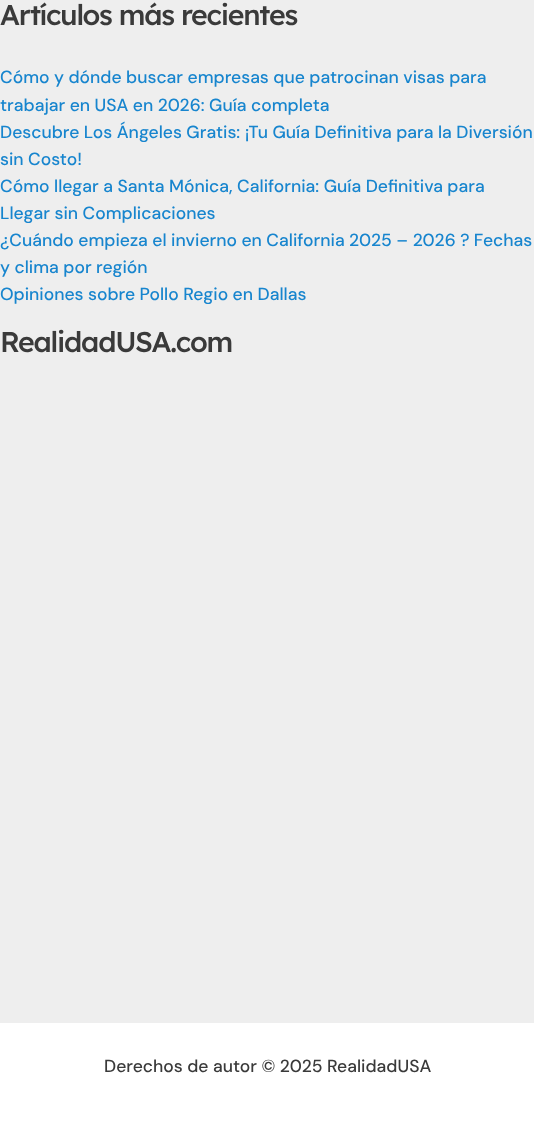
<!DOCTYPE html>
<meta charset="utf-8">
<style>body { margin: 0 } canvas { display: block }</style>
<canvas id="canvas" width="534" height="1122"></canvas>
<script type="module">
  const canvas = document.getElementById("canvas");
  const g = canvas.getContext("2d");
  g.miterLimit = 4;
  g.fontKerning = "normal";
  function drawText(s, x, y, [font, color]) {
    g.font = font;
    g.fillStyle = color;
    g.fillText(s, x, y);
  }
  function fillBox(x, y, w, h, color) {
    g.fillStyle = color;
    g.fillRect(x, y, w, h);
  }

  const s1 = ["500 28.5px Lexend", "#3A3A3A"];
  const s2 = ["500 17.5px DM Sans", "#1785CE"];
  const s3 = ["500 17.5px DM Sans", "#3A3A3A"];

  fillBox(0, 0, 534, 1122, "#EEEEEE");
  g.letterSpacing = "-1.25px";
  drawText("Artículos más recientes", 0, 25, s1);
  g.letterSpacing = "0px";
  drawText("Cómo y dónde buscar empresas que patrocinan visas para", 0, 83, s2);
  drawText("trabajar en USA en 2026: Guía completa", 0, 111, s2);
  drawText("Descubre Los Ángeles Gratis: ¡Tu Guía Definitiva para la Diversión", 0, 138, s2);
  drawText("sin Costo!", 0, 165, s2);
  drawText("Cómo llegar a Santa Mónica, California: Guía Definitiva para", 0, 192, s2);
  drawText("Llegar sin Complicaciones", 0, 219, s2);
  drawText("¿Cuándo empieza el invierno en California 2025 – 2026 ? Fechas", 0, 246, s2);
  drawText("y clima por región", 0, 273, s2);
  drawText("Opiniones sobre Pollo Regio en Dallas", 0, 300, s2);
  g.letterSpacing = "-1.25px";
  drawText("RealidadUSA.com", 0, 352, s1);
  fillBox(0, 1023, 534, 99, "#FFFFFF");
  g.letterSpacing = "0px";
  drawText("Derechos de autor © 2025 RealidadUSA", 104, 1072, s3);
</script>
